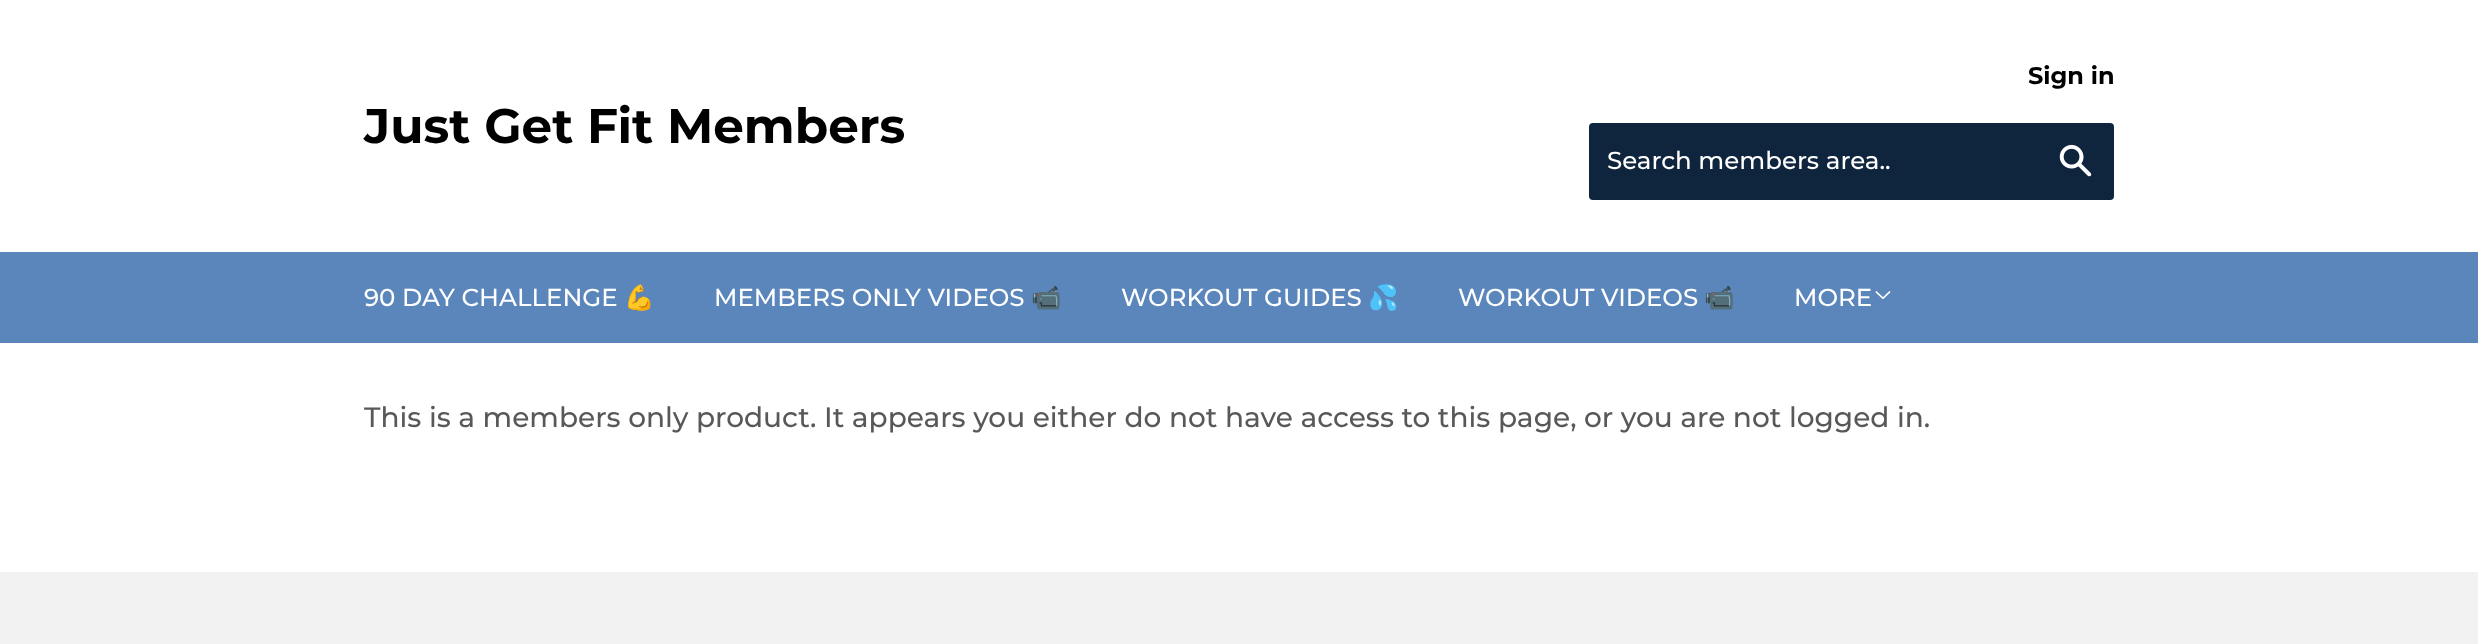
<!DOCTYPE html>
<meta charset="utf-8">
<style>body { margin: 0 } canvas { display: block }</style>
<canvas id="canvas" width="2478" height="644"></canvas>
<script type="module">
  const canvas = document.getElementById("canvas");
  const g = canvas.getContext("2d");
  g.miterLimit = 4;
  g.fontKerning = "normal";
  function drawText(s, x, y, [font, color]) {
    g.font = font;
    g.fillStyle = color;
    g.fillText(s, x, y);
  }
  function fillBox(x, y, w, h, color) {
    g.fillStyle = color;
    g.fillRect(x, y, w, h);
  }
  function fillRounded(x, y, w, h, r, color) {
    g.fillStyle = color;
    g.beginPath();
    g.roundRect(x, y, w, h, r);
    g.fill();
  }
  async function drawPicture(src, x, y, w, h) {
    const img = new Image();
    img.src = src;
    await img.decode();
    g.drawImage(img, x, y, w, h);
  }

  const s1 = ["bold 48.5px Montserrat", "#000000"];
  const s2 = ["bold 24px Montserrat", "#000000"];
  const s3 = ["500 24.5px Montserrat", "#FFFFFF"];
  const s4 = ["24.5px Noto Color Emoji", "#FFFFFF"];
  const s5 = ["500 28px Montserrat", "#585858"];

  fillBox(0, 0, 2478, 644, "#FFFFFF");
  drawText("Just Get Fit Members", 364, 143, s1);
  drawText("Sign in", 2028, 84, s2);
  fillRounded(1589, 123, 525, 77, 4, "#0F243D");
  drawText("Search members area..", 1607, 169, s3);
  await drawPicture("pic1.png", 2059, 144, 33, 33);
  fillBox(0, 252, 2478, 91, "#5A86BC");
  drawText("90 DAY CHALLENGE", 364, 306, s3);
  drawText("💪", 624, 306, s4);
  drawText("MEMBERS ONLY VIDEOS", 714, 306, s3);
  drawText("📹", 1031, 306, s4);
  drawText("WORKOUT GUIDES", 1121, 306, s3);
  drawText("💦", 1368, 306, s4);
  drawText("WORKOUT VIDEOS", 1458, 306, s3);
  drawText("📹", 1704, 306, s4);
  drawText("MORE", 1794, 306, s3);
  await drawPicture("pic2.png", 1875, 291, 16, 9);
  drawText("This is a members only product. It appears you either do not have access to this page, or you are not logged in.", 364, 427, s5);
  fillBox(0, 572, 2478, 72, "#F2F2F2");
</script>
